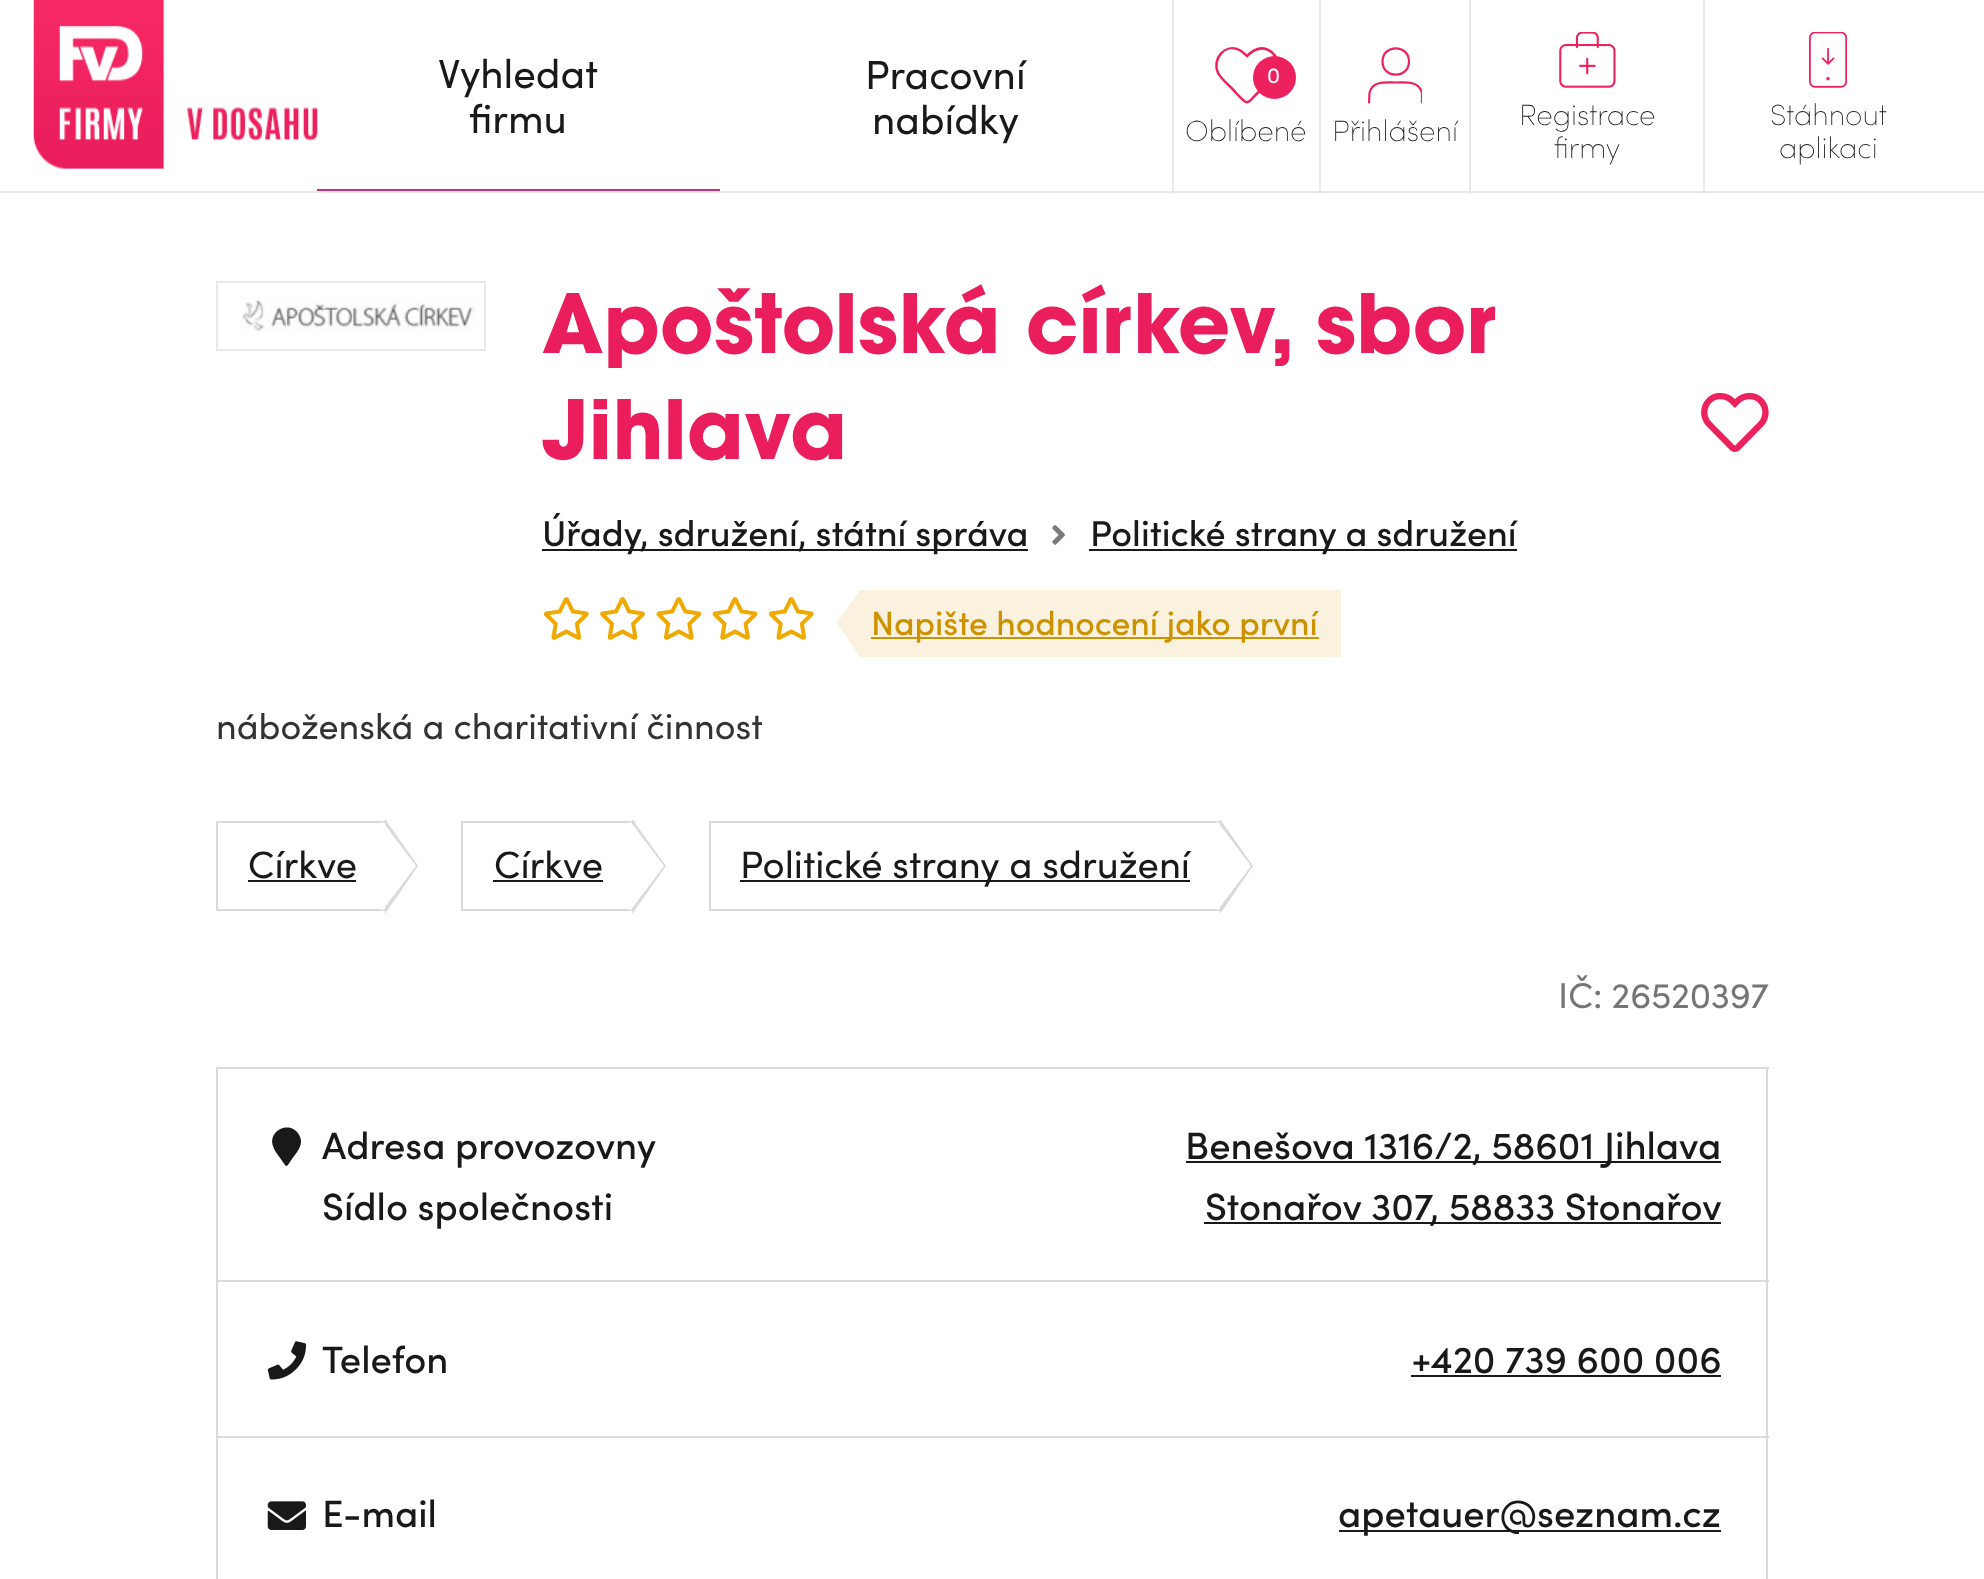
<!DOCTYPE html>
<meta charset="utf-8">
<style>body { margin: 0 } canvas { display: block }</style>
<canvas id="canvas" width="1984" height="1579"></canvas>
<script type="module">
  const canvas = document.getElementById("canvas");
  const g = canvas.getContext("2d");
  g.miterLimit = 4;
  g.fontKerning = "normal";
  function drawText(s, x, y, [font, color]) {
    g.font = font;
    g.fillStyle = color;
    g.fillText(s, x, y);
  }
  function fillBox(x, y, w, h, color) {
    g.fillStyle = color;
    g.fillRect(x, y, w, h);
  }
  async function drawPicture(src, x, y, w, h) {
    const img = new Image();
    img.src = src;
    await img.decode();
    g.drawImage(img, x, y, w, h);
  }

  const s1 = ["40.5px Sofia", "#191919"];
  const s2 = ["22px Sofia", "#FFFFFF"];
  const s3 = ["200 29.25px Sofia", "#191919"];
  const s4 = ["bold 81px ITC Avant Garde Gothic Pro", "#EA1D5D"];
  const s5 = ["500 36px Sofia", "#191919"];
  const s6 = ["500 33.75px Sofia", "#CE9200"];
  const s7 = ["36px Sofia", "#333333"];
  const s8 = ["38.25px Sofia", "#191919"];
  const s9 = ["36px Sofia", "#757575"];
  const s10 = ["500 38.25px Sofia", "#191919"];

  fillBox(0, 0, 1984, 1579, "#FFFFFF");
  fillBox(0, 191, 1984, 2, "#E9E9E9");
  await drawPicture("pic1.png", 33, 0, 285, 169);
  fillBox(317, 189, 403, 2, "#CC3076");
  drawText("Vyhledat", 438, 88, s1);
  drawText("firmu", 469, 133, s1);
  drawText("Pracovní", 865, 89, s1);
  drawText("nabídky", 872, 134, s1);
  fillBox(1172, 0, 2, 194, "#E9E9E9");
  g.beginPath();
  g.moveTo(1271.5, 52);
  g.bezierCurveTo(1262.5, 45, 1254, 49, 1247, 56);
  g.bezierCurveTo(1244.5, 54, 1242.5, 51.5, 1239.5, 50);
  g.bezierCurveTo(1225, 43, 1211.5, 59, 1218, 73);
  g.bezierCurveTo(1221, 78.5, 1228, 84.5, 1232.5, 89);
  g.bezierCurveTo(1235, 91.5, 1243, 101.5, 1246, 102);
  g.bezierCurveTo(1249.5, 103, 1252, 99, 1253.5, 97);
  g.lineTo(1261.5, 89);
  g.bezierCurveTo(1269, 81.5, 1280.5, 73.5, 1277, 61);
  g.bezierCurveTo(1276.5, 57.5, 1274.5, 54.5, 1271.5, 52);
  g.closePath();
  g.strokeStyle = "#EE215F";
  g.lineWidth = 2.5;
  g.stroke();
  g.fillStyle = "#EE215F";
  g.beginPath();
  g.arc(1274.5, 77.5, 21.5, 0, Math.PI * 2);
  g.fill();
  drawText("0", 1267, 83, s2);
  drawText("Oblíbené", 1185, 141, s3);
  fillBox(1319, 0, 2, 194, "#E9E9E9");
  g.save();
  g.beginPath();
  g.rect(1368, 47, 54, 57);
  g.clip();
  g.beginPath();
  g.moveTo(1422, 102.5);
  g.lineTo(1422, 93);
  g.bezierCurveTo(1419, 80.5, 1405.5, 82.5, 1395.5, 82.5);
  g.bezierCurveTo(1386, 82.5, 1372, 80.5, 1369.5, 93);
  g.lineTo(1369, 102.5);
  g.lineWidth = 2.2;
  g.lineCap = "round";
  g.lineJoin = "round";
  g.stroke();
  g.restore();
  g.beginPath();
  g.moveTo(1409, 61.5);
  g.bezierCurveTo(1409, 79, 1382.5, 79, 1382.5, 61.5);
  g.bezierCurveTo(1382.5, 44, 1409, 44, 1409, 61.5);
  g.closePath();
  g.lineWidth = 2.2;
  g.lineCap = "round";
  g.lineJoin = "round";
  g.stroke();
  drawText("Přihlášení", 1332, 141, s3);
  fillBox(1469, 0, 2, 194, "#E9E9E9");
  await drawPicture("pic2.png", 1559, 32, 57, 56);
  drawText("Registrace", 1519, 125, s3);
  drawText("firmy", 1554, 158, s3);
  fillBox(1703, 0, 2, 194, "#E9E9E9");
  await drawPicture("pic3.png", 1809, 32, 38, 56);
  drawText("Stáhnout", 1770, 125, s3);
  drawText("aplikaci", 1779, 158, s3);
  g.strokeStyle = "#E9E9E9";
  g.lineWidth = 2;
  g.lineJoin = "miter";
  g.strokeRect(217, 282, 268, 68);
  await drawPicture("pic4.png", 241, 297, 237, 35);
  drawText("Apoštolská církev, sbor", 542, 353, s4);
  drawText("Jihlava", 542, 459, s4);
  await drawPicture("pic5.png", 1701, 392, 68, 60);
  fillBox(542, 549, 486, 2, "#191919");
  drawText("Úřady, sdružení, státní správa", 542, 546, s5);
  await drawPicture("pic6.png", 1052, 525, 13, 20);
  fillBox(1089, 549, 428, 2, "#191919");
  drawText("Politické strany a sdružení", 1090, 546, s5);
  await drawPicture("pic7.png", 543, 597, 46, 43);
  await drawPicture("pic8.png", 600, 597, 45, 43);
  await drawPicture("pic9.png", 656, 597, 46, 43);
  await drawPicture("pic10.png", 712, 597, 46, 43);
  await drawPicture("pic7.png", 768, 597, 46, 43);
  fillBox(860, 590, 481, 67, "#FAF2DF");
  g.beginPath();
  g.moveTo(860, 590);
  g.lineTo(860, 657);
  g.lineTo(837, 623);
  g.closePath();
  g.fill();
  fillBox(871, 637, 448, 2, "#CE9200");
  drawText("Napište hodnocení jako první", 871, 635, s6);
  drawText("náboženská a charitativní činnost", 216, 739, s7);
  g.strokeStyle = "#DADADA";
  g.strokeRect(217, 822, 169, 88);
  g.fillStyle = "#DADADA";
  g.beginPath();
  g.moveTo(385, 914);
  g.lineTo(385, 819);
  g.lineTo(418, 866);
  g.closePath();
  g.fill();
  drawText("Církve", 248, 878, s8);
  fillBox(248, 880, 108, 2, "#191919");
  g.fillStyle = "#FFFFFF";
  g.beginPath();
  g.moveTo(382, 911);
  g.lineTo(382, 821);
  g.lineTo(416, 866);
  g.closePath();
  g.fill();
  g.strokeRect(462, 822, 172, 88);
  g.fillStyle = "#DADADA";
  g.beginPath();
  g.moveTo(632, 914);
  g.lineTo(632, 819);
  g.lineTo(666, 866);
  g.closePath();
  g.fill();
  drawText("Církve", 494, 878, s8);
  fillBox(493, 880, 110, 2, "#191919");
  g.fillStyle = "#FFFFFF";
  g.beginPath();
  g.moveTo(630, 911);
  g.lineTo(630, 821);
  g.lineTo(664, 866);
  g.closePath();
  g.fill();
  g.strokeRect(710, 822, 511, 88);
  g.fillStyle = "#DADADA";
  g.beginPath();
  g.moveTo(1220, 914);
  g.lineTo(1220, 819);
  g.lineTo(1253, 866);
  g.closePath();
  g.fill();
  fillBox(740, 880, 450, 2, "#191919");
  drawText("Politické strany a sdružení", 740, 878, s8);
  g.fillStyle = "#FFFFFF";
  g.beginPath();
  g.moveTo(1217, 911);
  g.lineTo(1217, 821);
  g.lineTo(1251, 866);
  g.closePath();
  g.fill();
  drawText("IČ: 26520397", 1558, 1008, s9);
  fillBox(216, 1067, 1553, 2, "#DADADA");
  fillBox(216, 1280, 1553, 2, "#DADADA");
  fillBox(216, 1436, 1553, 2, "#DADADA");
  fillBox(216, 1436, 2, 143, "#DADADA");
  fillBox(216, 1280, 2, 158, "#DADADA");
  fillBox(216, 1067, 2, 216, "#DADADA");
  g.fillStyle = "#191919";
  g.beginPath();
  g.moveTo(285, 1165);
  g.lineTo(279, 1156.5);
  g.bezierCurveTo(276.5, 1153, 273.5, 1149, 272.5, 1144.5);
  g.bezierCurveTo(269.5, 1129.5, 290, 1121, 298.5, 1134);
  g.bezierCurveTo(305, 1143.5, 297.5, 1151.5, 292, 1159);
  g.lineTo(287.5, 1165.5);
  g.bezierCurveTo(286.5, 1166, 285.5, 1166, 285, 1165);
  g.closePath();
  g.fill();
  drawText("Adresa provozovny", 322, 1159, s10);
  drawText("Sídlo společnosti", 322, 1220, s10);
  fillBox(1766, 1436, 2, 143, "#DADADA");
  fillBox(1766, 1280, 2, 158, "#DADADA");
  fillBox(1766, 1067, 2, 216, "#DADADA");
  fillBox(1186, 1161, 535, 2, "#191919");
  drawText("Benešova 1316/2, 58601 Jihlava", 1185, 1159, s10);
  fillBox(1204, 1222, 517, 2, "#191919");
  drawText("Stonařov 307, 58833 Stonařov", 1205, 1220, s10);
  await drawPicture("pic11.png", 267, 1341, 40, 39);
  drawText("Telefon", 322, 1373, s10);
  drawText("+420 739 600 006", 1412, 1373, s10);
  fillBox(1411, 1375, 310, 2, "#191919");
  await drawPicture("pic12.png", 267, 1501, 39, 29);
  drawText("E-mail", 322, 1527, s10);
  fillBox(1339, 1530, 382, 2, "#191919");
  drawText("apetauer@seznam.cz", 1338, 1527, s10);
</script>
